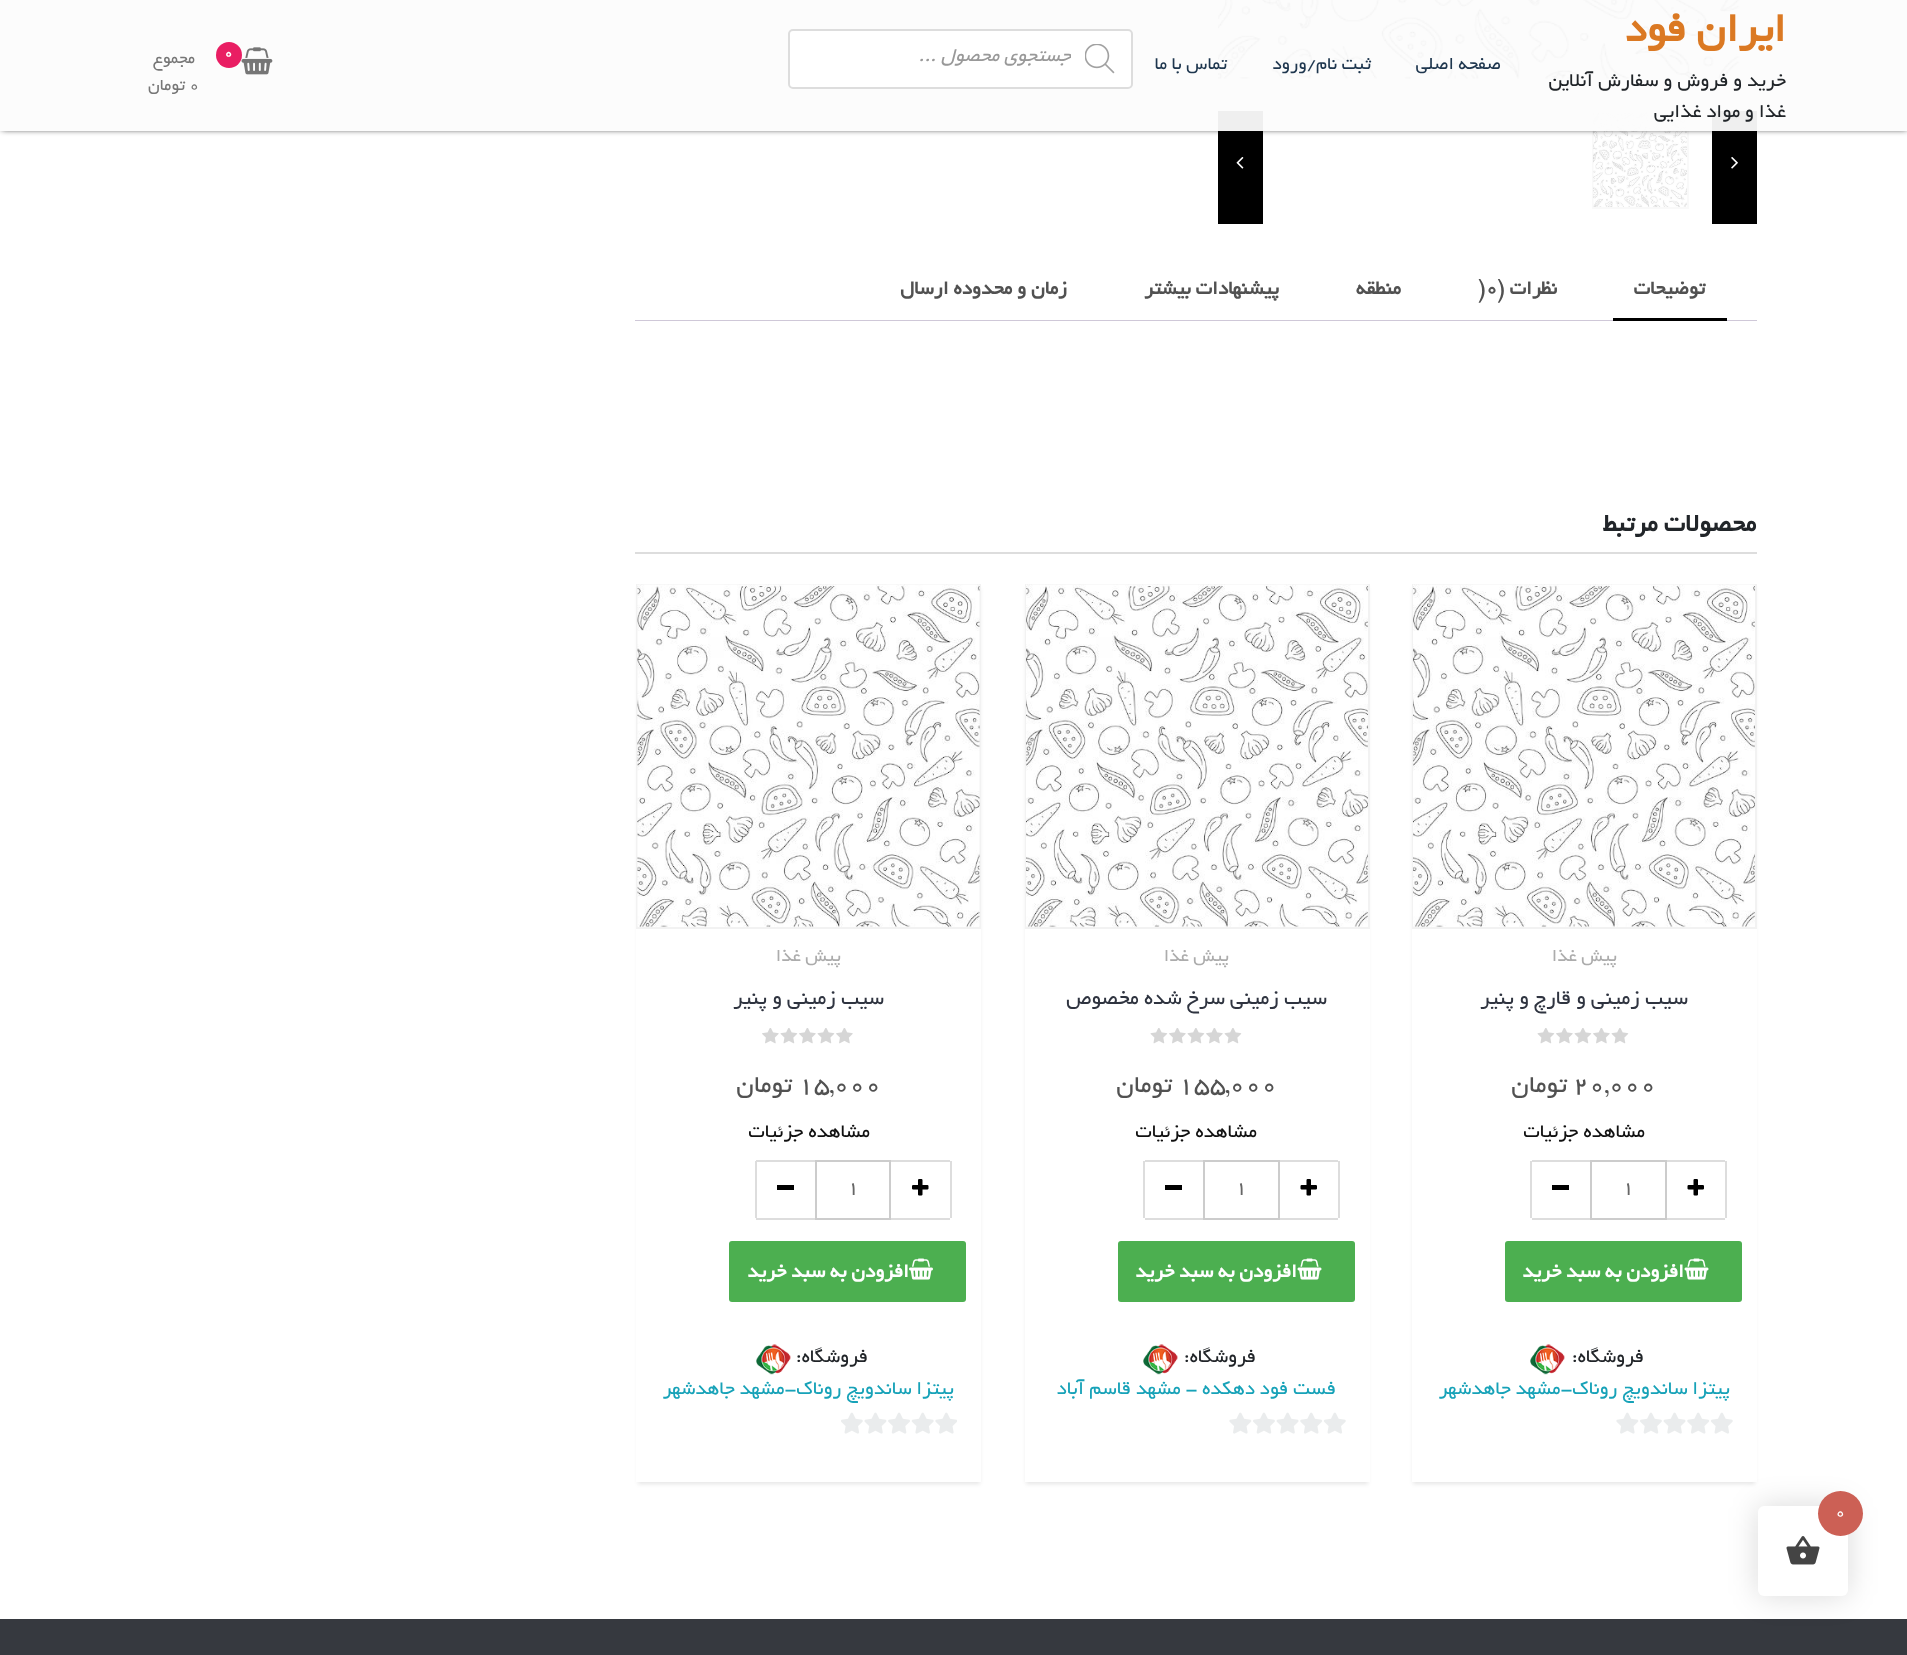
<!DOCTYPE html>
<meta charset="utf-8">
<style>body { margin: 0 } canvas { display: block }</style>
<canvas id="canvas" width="1907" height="1655"></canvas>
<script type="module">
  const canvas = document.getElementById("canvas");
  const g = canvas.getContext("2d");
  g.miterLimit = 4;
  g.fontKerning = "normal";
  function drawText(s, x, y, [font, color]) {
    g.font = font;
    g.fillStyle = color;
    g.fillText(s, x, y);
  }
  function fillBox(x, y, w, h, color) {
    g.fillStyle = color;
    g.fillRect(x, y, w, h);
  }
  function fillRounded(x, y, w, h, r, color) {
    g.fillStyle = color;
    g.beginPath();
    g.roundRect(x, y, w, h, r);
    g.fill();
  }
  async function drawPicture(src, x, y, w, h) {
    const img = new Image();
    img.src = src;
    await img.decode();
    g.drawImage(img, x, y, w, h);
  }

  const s1 = ["bold 45px '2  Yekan'", "#DB7923"];
  const s2 = ["21px '2  Yekan'", "#212529"];
  const s3 = ["19.5px '2  Yekan'", "#1E364E"];
  const s4 = ["italic 21px '2  Yekan'", "#999999"];
  const s5 = ["bold 15px '2  Yekan'", "#FFFFFF"];
  const s6 = ["18px '2  Yekan'", "#767676"];
  const s7 = ["bold 21px '2  Yekan'", "#515151"];
  const s8 = ["bold 27px '2  Yekan'", "#212529"];
  const s9 = ["19.5px '2  Yekan'", "#ACACAC"];
  const s10 = ["22.5px '2  Yekan'", "#2F3440"];
  const s11 = ["27px '2  Yekan'", "#515151"];
  const s12 = ["21px '2  Yekan'", "#111111"];
  const s13 = ["21px '2  Yekan'", "#666666"];
  const s14 = ["bold 21px '2  Yekan'", "#FFFFFF"];
  const s15 = ["21px '2  Yekan'", "#17A2B8"];
  const s16 = ["18px '2  Yekan'", "#FFFFFF"];

  fillBox(0, 0, 1907, 1655, "#FFFFFF");
  g.save();
  g.beginPath();
  g.rect(1218, 0, 539, 96);
  g.clip();
  g.strokeStyle = "#F2F2F2";
  g.lineWidth = 2;
  g.strokeRect(1203, -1, 536, 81);
  g.restore();
  await drawPicture("pic3.png", 1218, 0, 522, 79);
  fillBox(1712, 111, 45, 113, "#000000");
  fillBox(1218, 111, 45, 113, "#000000");
  g.strokeStyle = "#F9F9F9";
  g.lineWidth = 2;
  g.strokeRect(1593, 112, 95, 96);
  await drawPicture("pic6.png", 1593, 112, 94, 95);
  g.save();
  g.beginPath();
  g.moveTo(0, 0);
  g.lineTo(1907, 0);
  g.lineTo(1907, 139);
  g.lineTo(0, 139);
  g.closePath();
  g.moveTo(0, 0);
  g.lineTo(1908, 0);
  g.lineTo(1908, 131);
  g.lineTo(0, 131);
  g.closePath();
  g.clip("evenodd");
  g.filter = "blur(3px)";
  g.beginPath();
  g.rect(2, 2, 1905, 127);
  g.fill();
  g.filter = "none";
  g.restore();
  fillBox(0, 0, 1907, 131, "rgba(252, 252, 252, 0.95)");
  g.direction = "rtl";
  drawText("ایران فود", 1786, 41, s1);
  drawText("خرید و فروش و سفارش آنلاین", 1786, 86, s2);
  drawText("غذا و مواد غذایی", 1786, 117, s2);
  drawText("صفحه اصلی", 1501, 69, s3);
  drawText("ثبت نام/ورود", 1371, 69, s3);
  drawText("تماس با ما", 1227, 69, s3);
  g.fillStyle = "#FFFFFF";
  g.beginPath();
  g.roundRect(789, 30, 343, 58, 4);
  g.fill();
  g.strokeStyle = "#DDDDDD";
  g.stroke();
  await drawPicture("pic1.png", 1085, 44, 30, 30);
  g.save();
  g.beginPath();
  g.rect(812, 48, 259, 21);
  g.clip();
  drawText("جستجوی محصول ...", 1071, 61, s4);
  g.restore();
  await drawPicture("pic2.png", 241, 47, 32, 28);
  g.fillStyle = "#E91E63";
  g.beginPath();
  g.arc(229, 55, 13, 0, Math.PI * 2);
  g.fill();
  g.direction = "ltr";
  drawText("0", 224, 57, s5);
  g.direction = "rtl";
  drawText("مجموع", 195, 63, s6);
  g.direction = "ltr";
  drawText("0", 189, 90, s6);
  g.direction = "rtl";
  drawText("تومان", 185, 90, s6);
  await drawPicture("pic4.png", 1731, 157, 7, 12);
  await drawPicture("pic5.png", 1236, 157, 8, 12);
  fillBox(635, 320, 1122, 1, "#CFC8D8");
  g.fillStyle = "#FFFFFF";
  g.beginPath();
  g.roundRect(1613, 266, 114, 55, [6, 6, 0, 0]);
  g.fill();
  fillBox(1613, 318, 114, 3, "#000000");
  drawText("توضیحات", 1705, 294, s7);
  drawText("نظرات (", 1557, 294, s7);
  g.direction = "ltr";
  drawText(")0", 1478, 294, s7);
  g.direction = "rtl";
  drawText("منطقه", 1401, 294, s7);
  drawText("پیشنهادات بیشتر", 1279, 294, s7);
  drawText("زمان و محدوده ارسال", 1067, 294, s7);
  fillBox(635, 552, 1122, 2, "#DDDDDD");
  drawText("محصولات مرتبط", 1756, 531, s8);
  g.fillStyle = "rgba(0, 0, 0, 0.1)";
  g.filter = "blur(2px)";
  g.beginPath();
  g.rect(1413, 588, 342, 896);
  g.fill();
  g.filter = "none";
  fillBox(1412, 926, 345, 556, "#FFFFFF");
  g.strokeStyle = "#F2F2F2";
  g.strokeRect(1413, 585, 343, 343);
  await drawPicture("pic7.png", 1413, 584, 342, 343);
  drawText("پیش غذا", 1617, 961, s9);
  drawText("سیب زمینی و قارچ و پنیر", 1688, 1004, s10);
  await drawPicture("pic8.png", 1537, 1028, 92, 16);
  g.direction = "ltr";
  drawText("20,000", 1573, 1092, s11);
  g.direction = "rtl";
  drawText("تومان", 1567, 1092, s11);
  drawText("مشاهده جزئیات", 1645, 1137, s12);
  fillBox(1667, 1160, 58, 2, "#DDDDDD");
  fillBox(1725, 1161, 2, 57, "#DDDDDD");
  fillBox(1667, 1218, 58, 2, "#DDDDDD");
  await drawPicture("pic9.png", 1687, 1179, 17, 17);
  g.strokeStyle = "#CCCCCC";
  g.strokeRect(1591, 1161, 75, 58);
  g.direction = "ltr";
  drawText("1", 1622, 1193, s13);
  fillBox(1532, 1160, 58, 2, "#DDDDDD");
  fillBox(1532, 1218, 58, 2, "#DDDDDD");
  fillBox(1530, 1161, 2, 57, "#DDDDDD");
  fillBox(1552, 1185, 17, 5, "#000000");
  fillRounded(1505, 1241, 237, 61, 3, "#4CAF50");
  await drawPicture("pic10.png", 1684, 1258, 25, 22);
  g.direction = "rtl";
  drawText("افزودن به سبد خرید", 1684, 1277, s14);
  drawText("فروشگاه:", 1644, 1362, s2);
  await drawPicture("pic11.png", 1530, 1344, 35, 31);
  drawText("پیتزا ساندویچ روناک-مشهد جاهدشهر", 1730, 1394, s15);
  await drawPicture("pic12.png", 1616, 1412, 117, 22);
  g.fillStyle = "rgba(0, 0, 0, 0.1)";
  g.filter = "blur(2px)";
  g.beginPath();
  g.rect(1026, 588, 342, 896);
  g.fill();
  g.filter = "none";
  fillBox(1025, 926, 345, 556, "#FFFFFF");
  g.strokeStyle = "#F2F2F2";
  g.strokeRect(1026, 585, 343, 343);
  await drawPicture("pic13.png", 1026, 584, 342, 343);
  drawText("پیش غذا", 1229, 961, s9);
  drawText("سیب زمینی سرخ شده مخصوص", 1327, 1004, s10);
  await drawPicture("pic8.png", 1150, 1028, 92, 16);
  g.direction = "ltr";
  drawText("155,000", 1178, 1092, s11);
  g.direction = "rtl";
  drawText("تومان", 1172, 1092, s11);
  drawText("مشاهده جزئیات", 1257, 1137, s12);
  fillBox(1280, 1160, 58, 2, "#DDDDDD");
  fillBox(1338, 1161, 2, 57, "#DDDDDD");
  fillBox(1280, 1218, 58, 2, "#DDDDDD");
  await drawPicture("pic9.png", 1300, 1179, 17, 17);
  g.strokeStyle = "#CCCCCC";
  g.strokeRect(1204, 1161, 75, 58);
  g.direction = "ltr";
  drawText("1", 1235, 1193, s13);
  fillBox(1145, 1160, 58, 2, "#DDDDDD");
  fillBox(1145, 1218, 58, 2, "#DDDDDD");
  fillBox(1143, 1161, 2, 57, "#DDDDDD");
  fillBox(1165, 1185, 17, 5, "#000000");
  fillRounded(1118, 1241, 237, 61, 3, "#4CAF50");
  await drawPicture("pic10.png", 1297, 1258, 25, 22);
  g.direction = "rtl";
  drawText("افزودن به سبد خرید", 1297, 1277, s14);
  drawText("فروشگاه:", 1256, 1362, s2);
  await drawPicture("pic14.png", 1143, 1344, 35, 31);
  drawText("فست فود دهکده - مشهد قاسم آباد", 1336, 1394, s15);
  await drawPicture("pic12.png", 1229, 1412, 117, 22);
  g.save();
  g.beginPath();
  g.moveTo(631, 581);
  g.lineTo(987, 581);
  g.lineTo(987, 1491);
  g.lineTo(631, 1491);
  g.closePath();
  g.moveTo(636, 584);
  g.lineTo(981, 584);
  g.lineTo(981, 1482);
  g.lineTo(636, 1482);
  g.closePath();
  g.clip("evenodd");
  g.fillStyle = "rgba(0, 0, 0, 0.1)";
  g.filter = "blur(2px)";
  g.beginPath();
  g.rect(638, 588, 342, 896);
  g.fill();
  g.filter = "none";
  g.restore();
  g.strokeStyle = "#F2F2F2";
  g.strokeRect(637, 585, 343, 343);
  await drawPicture("pic15.png", 637, 584, 343, 343);
  drawText("پیش غذا", 841, 961, s9);
  drawText("سیب زمینی و پنیر", 884, 1004, s10);
  await drawPicture("pic16.png", 762, 1028, 91, 16);
  g.direction = "ltr";
  drawText("15,000", 798, 1092, s11);
  g.direction = "rtl";
  drawText("تومان", 792, 1092, s11);
  drawText("مشاهده جزئیات", 870, 1137, s12);
  fillBox(891, 1160, 59, 2, "#DDDDDD");
  fillBox(950, 1161, 2, 57, "#DDDDDD");
  fillBox(891, 1218, 59, 2, "#DDDDDD");
  await drawPicture("pic17.png", 912, 1179, 17, 17);
  g.strokeStyle = "#CCCCCC";
  g.strokeRect(816, 1161, 74, 58);
  g.direction = "ltr";
  drawText("1", 847, 1193, s13);
  fillBox(756, 1160, 59, 2, "#DDDDDD");
  fillBox(756, 1218, 59, 2, "#DDDDDD");
  fillBox(755, 1161, 2, 57, "#DDDDDD");
  fillBox(777, 1185, 17, 5, "#000000");
  fillRounded(729, 1241, 237, 61, 3, "#4CAF50");
  await drawPicture("pic18.png", 909, 1258, 24, 22);
  g.direction = "rtl";
  drawText("افزودن به سبد خرید", 909, 1277, s14);
  drawText("فروشگاه:", 868, 1362, s2);
  await drawPicture("pic19.png", 756, 1344, 35, 31);
  drawText("پیتزا ساندویچ روناک-مشهد جاهدشهر", 954, 1394, s15);
  await drawPicture("pic20.png", 841, 1412, 116, 22);
  fillBox(0, 1619, 1907, 36, "#36393F");
  g.fillStyle = "rgba(0, 0, 0, 0.15)";
  g.filter = "blur(15px)";
  g.beginPath();
  g.roundRect(1758, 1506, 90, 90, 6);
  g.fill();
  g.filter = "none";
  fillRounded(1758, 1506, 90, 90, 6, "#FFFFFF");
  g.fillStyle = "#CC6055";
  g.beginPath();
  g.arc(1840.5, 1513.5, 22.5, 0, Math.PI * 2);
  g.fill();
  g.direction = "ltr";
  drawText("0", 1835, 1517, s16);
  await drawPicture("pic21.png", 1786, 1536, 34, 29);
</script>
